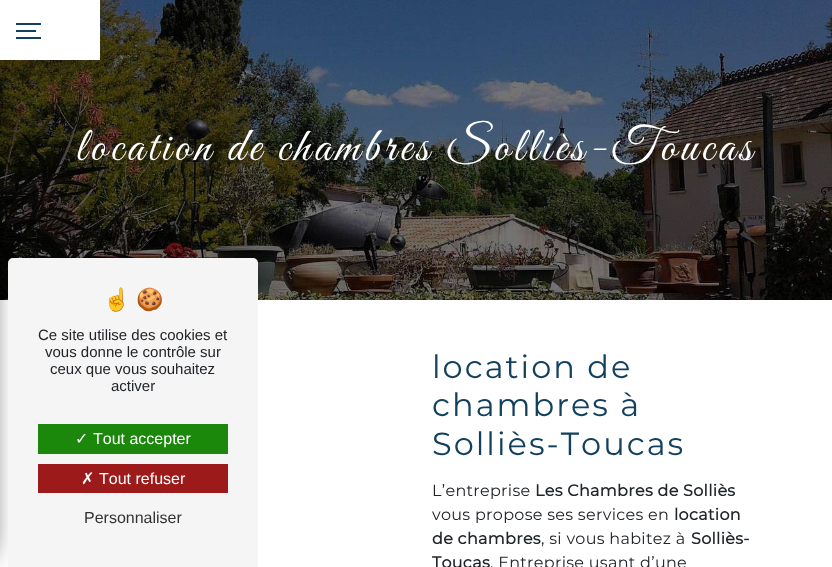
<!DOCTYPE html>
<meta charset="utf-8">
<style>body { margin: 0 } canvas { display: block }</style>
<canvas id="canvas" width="832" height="567"></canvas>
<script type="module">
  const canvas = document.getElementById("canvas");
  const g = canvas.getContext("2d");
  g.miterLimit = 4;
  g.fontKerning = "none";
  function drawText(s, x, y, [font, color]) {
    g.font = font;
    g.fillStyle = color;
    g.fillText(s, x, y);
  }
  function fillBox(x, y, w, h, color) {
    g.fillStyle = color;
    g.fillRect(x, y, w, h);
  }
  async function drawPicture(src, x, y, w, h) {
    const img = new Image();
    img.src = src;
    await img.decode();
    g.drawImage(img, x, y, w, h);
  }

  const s1 = ["48px Great Vibes", "#FFFFFF"];
  const s2 = ["100 32px Montserrat", "#12405D"];
  const s3 = ["100 16px Montserrat", "#212529"];
  const s4 = ["bold 16px Montserrat", "#212529"];
  const s5 = ["22px Noto Color Emoji", "#212529"];
  const s6 = ["15px Liberation Sans", "#212529"];
  const s7 = ["16px DejaVu Sans", "#FFFFFF"];
  const s8 = ["16px Liberation Sans", "#FFFFFF"];
  const s9 = ["16px Liberation Sans", "#333333"];

  fillBox(0, 0, 832, 567, "#FFFFFF");
  await drawPicture("pic1.png", 0, 0, 832, 300);
  g.fillStyle = "#000000";
  g.filter = "blur(14.5px)";
  g.beginPath();
  g.rect(-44, 33, 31, 521);
  g.fill();
  g.filter = "none";
  g.filter = "blur(14.5px)";
  g.beginPath();
  g.rect(33, 33, 54, 14);
  g.fill();
  g.filter = "none";
  fillBox(0, 0, 100, 60, "#FFFFFF");
  fillBox(16, 23, 25, 2, "#12405D");
  fillBox(16, 30, 20, 2, "#12405D");
  fillBox(16, 37, 25, 2, "#12405D");
  g.letterSpacing = "4px";
  drawText("location de chambres Solliès-Toucas", 76, 160, s1);
  g.letterSpacing = "2px";
  drawText("location de", 432, 378, s2);
  drawText("chambres à", 432, 416, s2);
  drawText("Solliès-Toucas", 432, 455, s2);
  g.letterSpacing = "0.3px";
  drawText("L’entreprise", 432, 496, s3);
  drawText("Les Chambres de Solliès", 535, 496, s4);
  drawText("vous propose ses services en", 432, 520, s3);
  drawText("location", 674, 520, s4);
  drawText("de chambres", 432, 544, s4);
  drawText(", si vous habitez à", 541, 544, s3);
  drawText("Solliès-", 691, 544, s4);
  drawText("Toucas", 432, 568, s4);
  drawText(". Entreprise usant d’une", 490, 568, s3);
  g.fillStyle = "#F5F5F5";
  g.beginPath();
  g.roundRect(8, 258, 250, 309, [5, 5, 0, 0]);
  g.fill();
  g.letterSpacing = "0px";
  drawText("☝", 103, 307, s5);
  drawText("🍪", 136, 307, s5);
  drawText("Ce site utilise des cookies et", 38, 340, s6);
  drawText("vous donne le contrôle sur", 45, 357, s6);
  drawText("ceux que vous souhaitez", 50, 374, s6);
  drawText("activer", 111, 391, s6);
  fillBox(38, 424, 190, 30, "#1B870B");
  drawText("✓", 75, 444, s7);
  drawText("Tout accepter", 93, 444, s8);
  fillBox(38, 464, 190, 29, "#9C1A1A");
  drawText("✗", 81, 484, s7);
  drawText("Tout refuser", 99, 484, s8);
  drawText("Personnaliser", 84, 523, s9);
</script>
